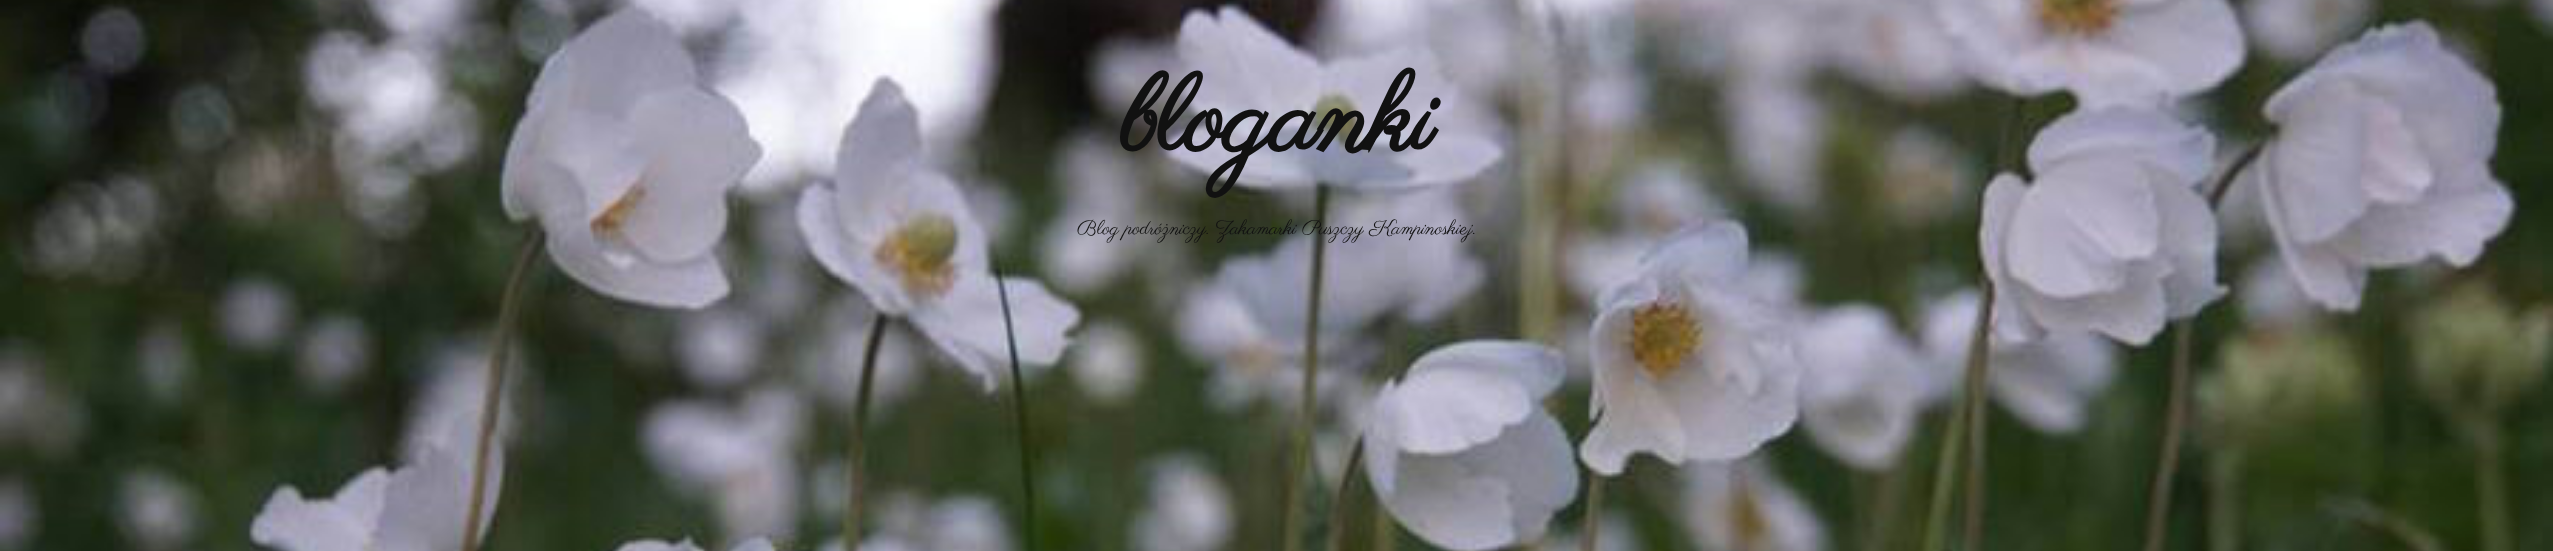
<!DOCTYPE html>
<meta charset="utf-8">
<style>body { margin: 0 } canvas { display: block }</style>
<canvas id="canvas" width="2553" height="551"></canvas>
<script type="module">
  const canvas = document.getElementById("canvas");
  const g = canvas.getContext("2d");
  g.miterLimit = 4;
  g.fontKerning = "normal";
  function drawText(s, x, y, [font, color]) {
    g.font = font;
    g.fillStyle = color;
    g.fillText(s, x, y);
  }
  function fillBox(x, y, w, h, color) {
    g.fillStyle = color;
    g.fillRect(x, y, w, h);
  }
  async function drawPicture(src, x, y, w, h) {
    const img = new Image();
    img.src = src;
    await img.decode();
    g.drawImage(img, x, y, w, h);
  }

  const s1 = ["bold 107.5px Parisienne", "#111111"];
  const s2 = ["20px Parisienne", "#111111"];

  fillBox(0, 0, 2553, 551, "#FFFFFF");
  await drawPicture("pic1.png", 0, 0, 2553, 551);
  g.letterSpacing = "-1.25px";
  drawText("bloganki", 1121, 150, s1);
  g.letterSpacing = "0px";
  drawText("Blog podróżniczy. Zakamarki Puszczy Kampinoskiej.", 1077, 234, s2);
</script>
